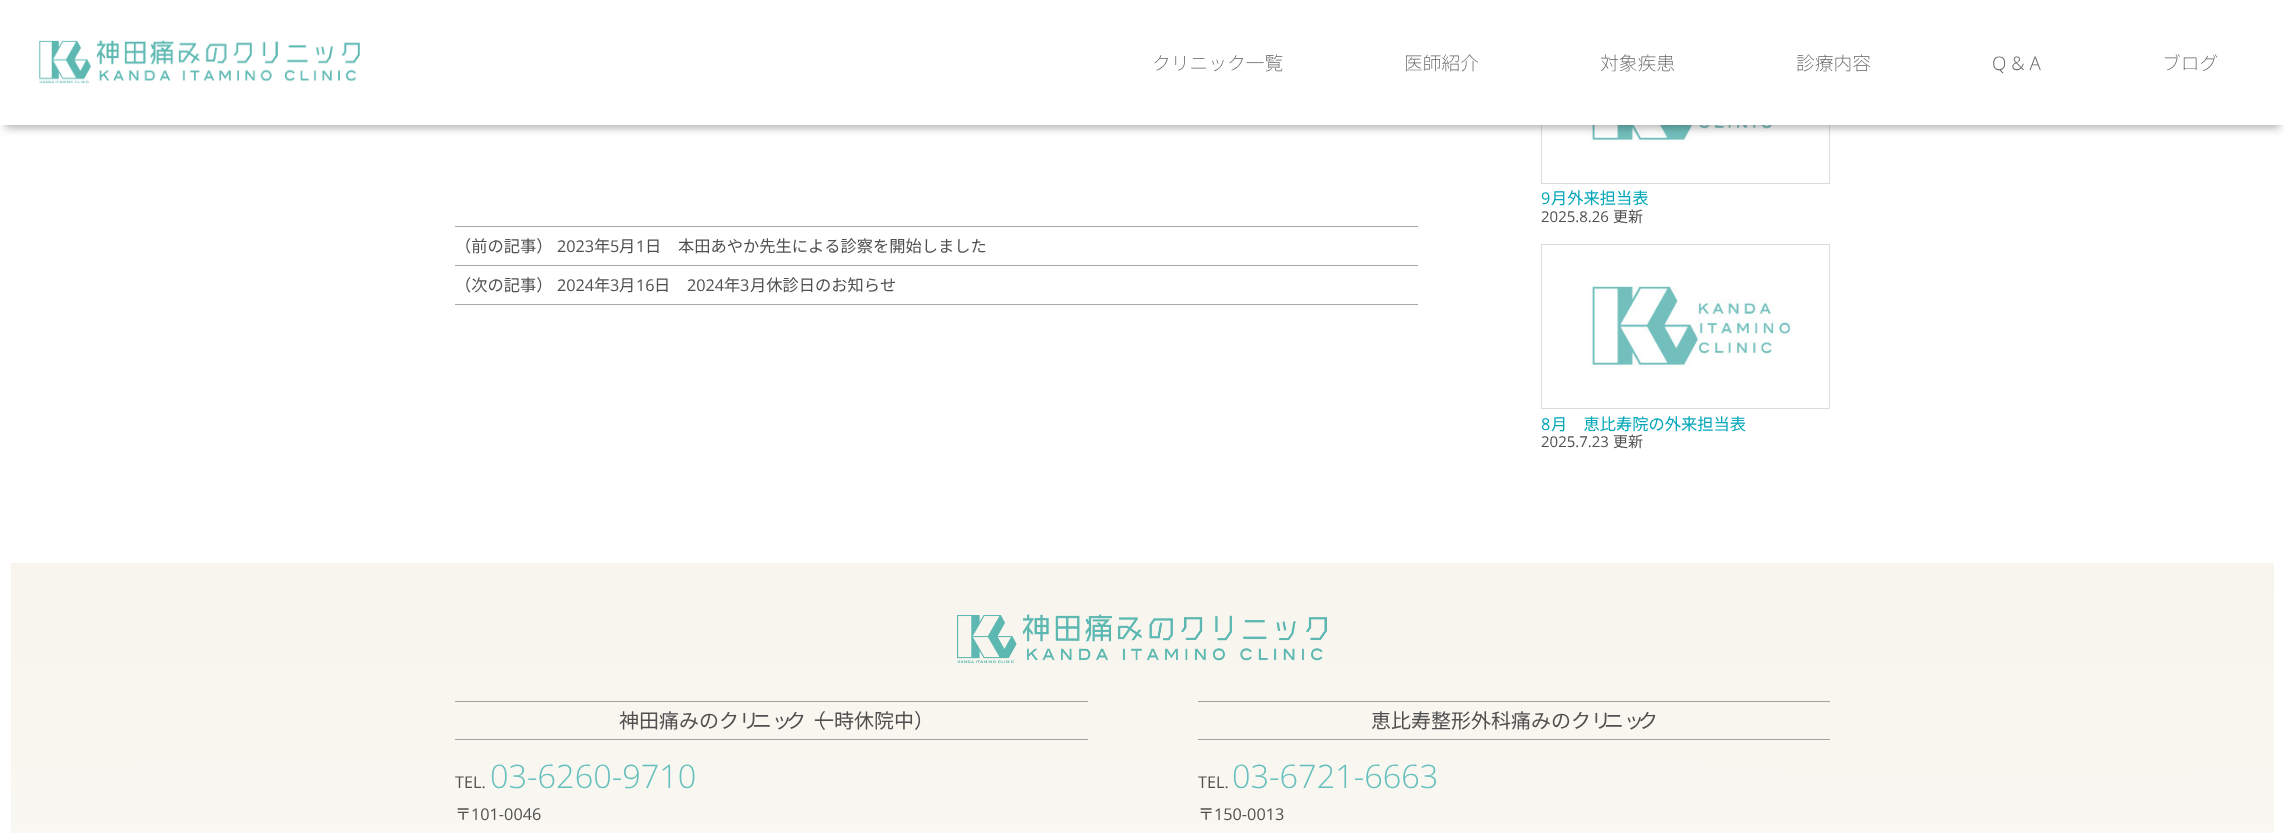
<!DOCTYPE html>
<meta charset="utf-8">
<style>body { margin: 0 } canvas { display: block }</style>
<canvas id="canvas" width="2284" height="833"></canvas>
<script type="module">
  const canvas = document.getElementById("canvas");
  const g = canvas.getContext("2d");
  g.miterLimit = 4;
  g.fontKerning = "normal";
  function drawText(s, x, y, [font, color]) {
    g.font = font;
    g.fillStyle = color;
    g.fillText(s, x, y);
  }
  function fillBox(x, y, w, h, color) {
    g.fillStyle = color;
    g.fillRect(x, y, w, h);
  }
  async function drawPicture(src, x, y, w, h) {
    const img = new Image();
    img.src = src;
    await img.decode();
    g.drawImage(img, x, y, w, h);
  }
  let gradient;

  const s1 = ["200 18.75px Noto Sans JP", "#646464"];
  const s2 = ["300 18.75px Open Sans", "#646464"];
  const s3 = ["16.25px Noto Sans JP", "#505050"];
  const s4 = ["16.25px Open Sans", "#505050"];
  const s5 = ["16.25px Open Sans", "#00A6B8"];
  const s6 = ["16.25px Noto Sans JP", "#00A6B8"];
  const s7 = ["15px Open Sans", "#505050"];
  const s8 = ["15px Noto Sans JP", "#505050"];
  const s9 = ["20px Noto Sans JP", "#505050"];
  const s10 = ["300 32.5px Open Sans", "#65BFBD"];

  fillBox(0, 0, 2284, 833, "#FFFFFF");
  g.strokeStyle = "#DCDCDC";
  g.strokeRect(1541.5, 19.5, 288, 164);
  await drawPicture("pic2.png", 1590, 125, 202, 17);
  g.fillStyle = "rgba(0, 0, 0, 0.3)";
  g.filter = "blur(4px)";
  g.beginPath();
  g.rect(5, 13, 2275, 115);
  g.fill();
  g.filter = "none";
  fillBox(0, 6, 2284, 119, "#FFFFFF");
  await drawPicture("pic1.png", 39, 40, 321, 44);
  drawText("クリニック一覧", 1152, 70, s1);
  drawText("医師紹介", 1404, 70, s1);
  drawText("対象疾患", 1600, 70, s1);
  drawText("診療内容", 1796, 70, s1);
  drawText("Q & A", 1992, 70, s2);
  drawText("ブログ", 2162, 70, s1);
  fillBox(455, 226, 963, 1, "#A8A8A8");
  fillBox(455, 265, 963, 1, "#A8A8A8");
  drawText("（前の記事）", 455, 252, s3);
  drawText("2023", 557, 252, s4);
  drawText("年", 594, 252, s3);
  drawText("5", 610, 252, s4);
  drawText("月", 619, 252, s3);
  drawText("1", 636, 252, s4);
  drawText("日", 645, 252, s3);
  drawText("本田あやか先生による診察を開始しました", 678, 252, s3);
  fillBox(455, 304, 963, 1, "#A8A8A8");
  drawText("（次の記事）", 455, 291, s3);
  drawText("2024", 557, 291, s4);
  drawText("年", 594, 291, s3);
  drawText("3", 610, 291, s4);
  drawText("月", 619, 291, s3);
  drawText("16", 636, 291, s4);
  drawText("日", 654, 291, s3);
  drawText("2024", 687, 291, s4);
  drawText("年", 724, 291, s3);
  drawText("3", 740, 291, s4);
  drawText("月休診日のお知らせ", 750, 291, s3);
  drawText("9", 1541, 204, s5);
  drawText("月外来担当表", 1551, 204, s6);
  drawText("2025.8.26", 1541, 222, s7);
  drawText("更新", 1613, 222, s8);
  g.strokeRect(1541.5, 244.5, 288, 164);
  await drawPicture("pic3.png", 1590, 286, 202, 81);
  drawText("8", 1541, 430, s5);
  drawText("月　恵比寿院の外来担当表", 1551, 430, s6);
  drawText("2025.7.23", 1541, 447, s7);
  drawText("更新", 1613, 447, s8);
  gradient = g.createLinearGradient(1142, 562, 1143, 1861);
  gradient.addColorStop(0, "#F7F5ED");
  gradient.addColorStop(0.99, "#FFFFFF");
  g.fillStyle = gradient;
  g.fillRect(11, 563, 2263, 270);
  await drawPicture("pic4.png", 957, 614, 370, 50);
  fillBox(455, 701, 633, 1, "#A4A3A0");
  fillBox(455, 739, 633, 1, "#A4A3A0");
  drawText("神田痛みのクリ", 619, 728, s9);
  drawText("ニッ", 752, 728, s9);
  drawText("ク（", 786, 728, s9);
  drawText("一時休院中）", 814, 728, s9);
  drawText("TEL.", 455, 788, s4);
  drawText("03-6260-9710", 490, 788, s10);
  drawText("〒", 455, 820, s3);
  drawText("101-0046", 471, 820, s4);
  fillBox(1198, 701, 632, 1, "#A4A3A0");
  fillBox(1198, 739, 632, 1, "#A4A3A0");
  drawText("恵比寿整形外科痛みのクリ", 1371, 728, s9);
  drawText("ニッ", 1604, 728, s9);
  drawText("ク", 1638, 728, s9);
  drawText("TEL.", 1198, 788, s4);
  drawText("03-6721-6663", 1232, 788, s10);
  drawText("〒", 1198, 820, s3);
  drawText("150-0013", 1214, 820, s4);
</script>
